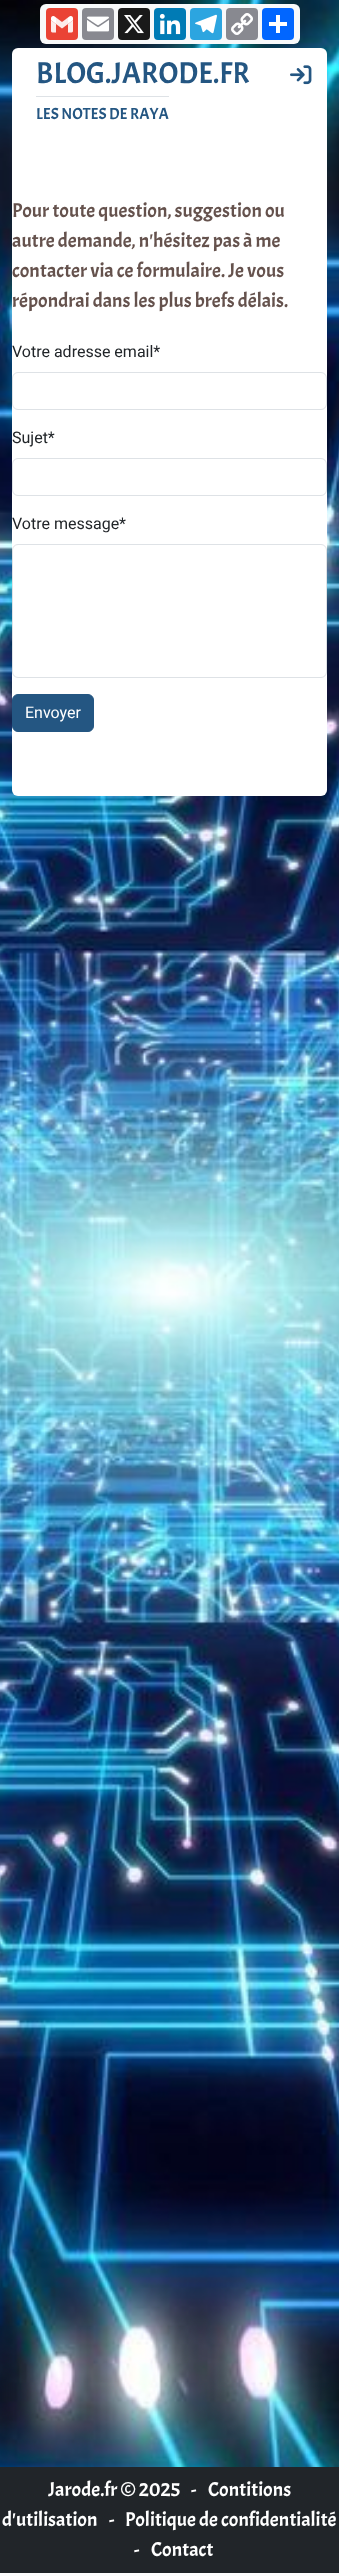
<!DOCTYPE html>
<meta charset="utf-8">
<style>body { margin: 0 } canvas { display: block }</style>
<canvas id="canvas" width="339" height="2573"></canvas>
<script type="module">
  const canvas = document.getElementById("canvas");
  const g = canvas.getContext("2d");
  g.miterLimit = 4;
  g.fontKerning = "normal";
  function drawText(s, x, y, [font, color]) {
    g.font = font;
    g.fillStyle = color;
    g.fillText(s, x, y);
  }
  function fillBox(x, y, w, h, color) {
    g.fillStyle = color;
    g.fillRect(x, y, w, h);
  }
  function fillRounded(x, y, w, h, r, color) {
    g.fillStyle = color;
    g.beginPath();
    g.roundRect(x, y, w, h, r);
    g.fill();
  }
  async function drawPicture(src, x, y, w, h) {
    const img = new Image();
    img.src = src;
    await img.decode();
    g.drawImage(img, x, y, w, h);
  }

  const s1 = ["30px Acme", "#245682"];
  const s2 = ["16px Acme", "#245682"];
  const s3 = ["20px Acme", "#65524D"];
  const s4 = ["16px Roboto", "#212529"];
  const s5 = ["16px Roboto", "#FFFFFF"];
  const s6 = ["20px Acme", "#FFFFFF"];

  fillBox(0, 0, 339, 2573, "#FFFFFF");
  await drawPicture("pic1.png", 0, 0, 339, 2467);
  fillRounded(40, 4, 260, 40, 6, "#F8F9FA");
  fillRounded(46, 8, 32, 32, 4, "#EA4335");
  await drawPicture("pic2.png", 51, 16, 22, 17);
  fillRounded(82, 8, 32, 32, 4, "#888990");
  await drawPicture("pic3.png", 87, 16, 22, 16);
  fillRounded(118, 8, 32, 32, 4, "#1A1A1A");
  await drawPicture("pic4.png", 124, 15, 20, 19);
  fillRounded(154, 8, 32, 32, 4, "#007BB5");
  await drawPicture("pic5.png", 159, 13, 22, 22);
  fillRounded(190, 8, 32, 32, 4, "#2CA5E0");
  await drawPicture("pic6.png", 195, 14, 22, 20);
  fillRounded(226, 8, 32, 32, 4, "#888990");
  await drawPicture("pic7.png", 231, 13, 22, 22);
  fillRounded(262, 8, 32, 32, 4, "#0166FF");
  fillBox(276, 15, 4, 18, "#FFFFFF");
  fillBox(269, 22, 18, 4, "#FFFFFF");
  fillRounded(12, 48, 315, 748, 6, "#FFFFFF");
  drawText("BLOG.JARODE.FR", 36, 83, s1);
  await drawPicture("pic8.png", 290, 65, 22, 20);
  fillBox(36, 96, 133, 1, "#DEE2E6");
  drawText("LES NOTES DE RAYA", 36, 119, s2);
  drawText("Pour toute question, suggestion ou", 12, 217, s3);
  drawText("autre demande, n'hésitez pas à me", 12, 247, s3);
  drawText("contacter via ce formulaire. Je vous", 12, 277, s3);
  drawText("répondrai dans les plus brefs délais.", 12, 307, s3);
  drawText("Votre adresse email*", 12, 357, s4);
  g.beginPath();
  g.roundRect(12.5, 372.5, 314, 37, 5.5);
  g.strokeStyle = "#DEE2E6";
  g.stroke();
  drawText("Sujet*", 12, 443, s4);
  g.beginPath();
  g.roundRect(12.5, 458.5, 314, 37, 5.5);
  g.stroke();
  drawText("Votre message*", 12, 529, s4);
  g.beginPath();
  g.roundRect(12.5, 544.5, 314, 133, 5.5);
  g.stroke();
  g.fillStyle = "#245682";
  g.beginPath();
  g.roundRect(12.5, 694.5, 81, 37, 5.5);
  g.fill();
  g.strokeStyle = "#245682";
  g.stroke();
  drawText("Envoyer", 25, 718, s5);
  fillBox(0, 2467, 339, 106, "#212529");
  drawText("Jarode.fr © 2025", 48, 2496, s6);
  drawText("-", 191, 2496, s6);
  drawText("Contitions", 208, 2496, s6);
  drawText("d'utilisation", 2, 2526, s6);
  drawText("-", 109, 2526, s6);
  drawText("Politique de confidentialité", 125, 2526, s6);
  drawText("-", 134, 2556, s6);
  drawText("Contact", 151, 2556, s6);
</script>
